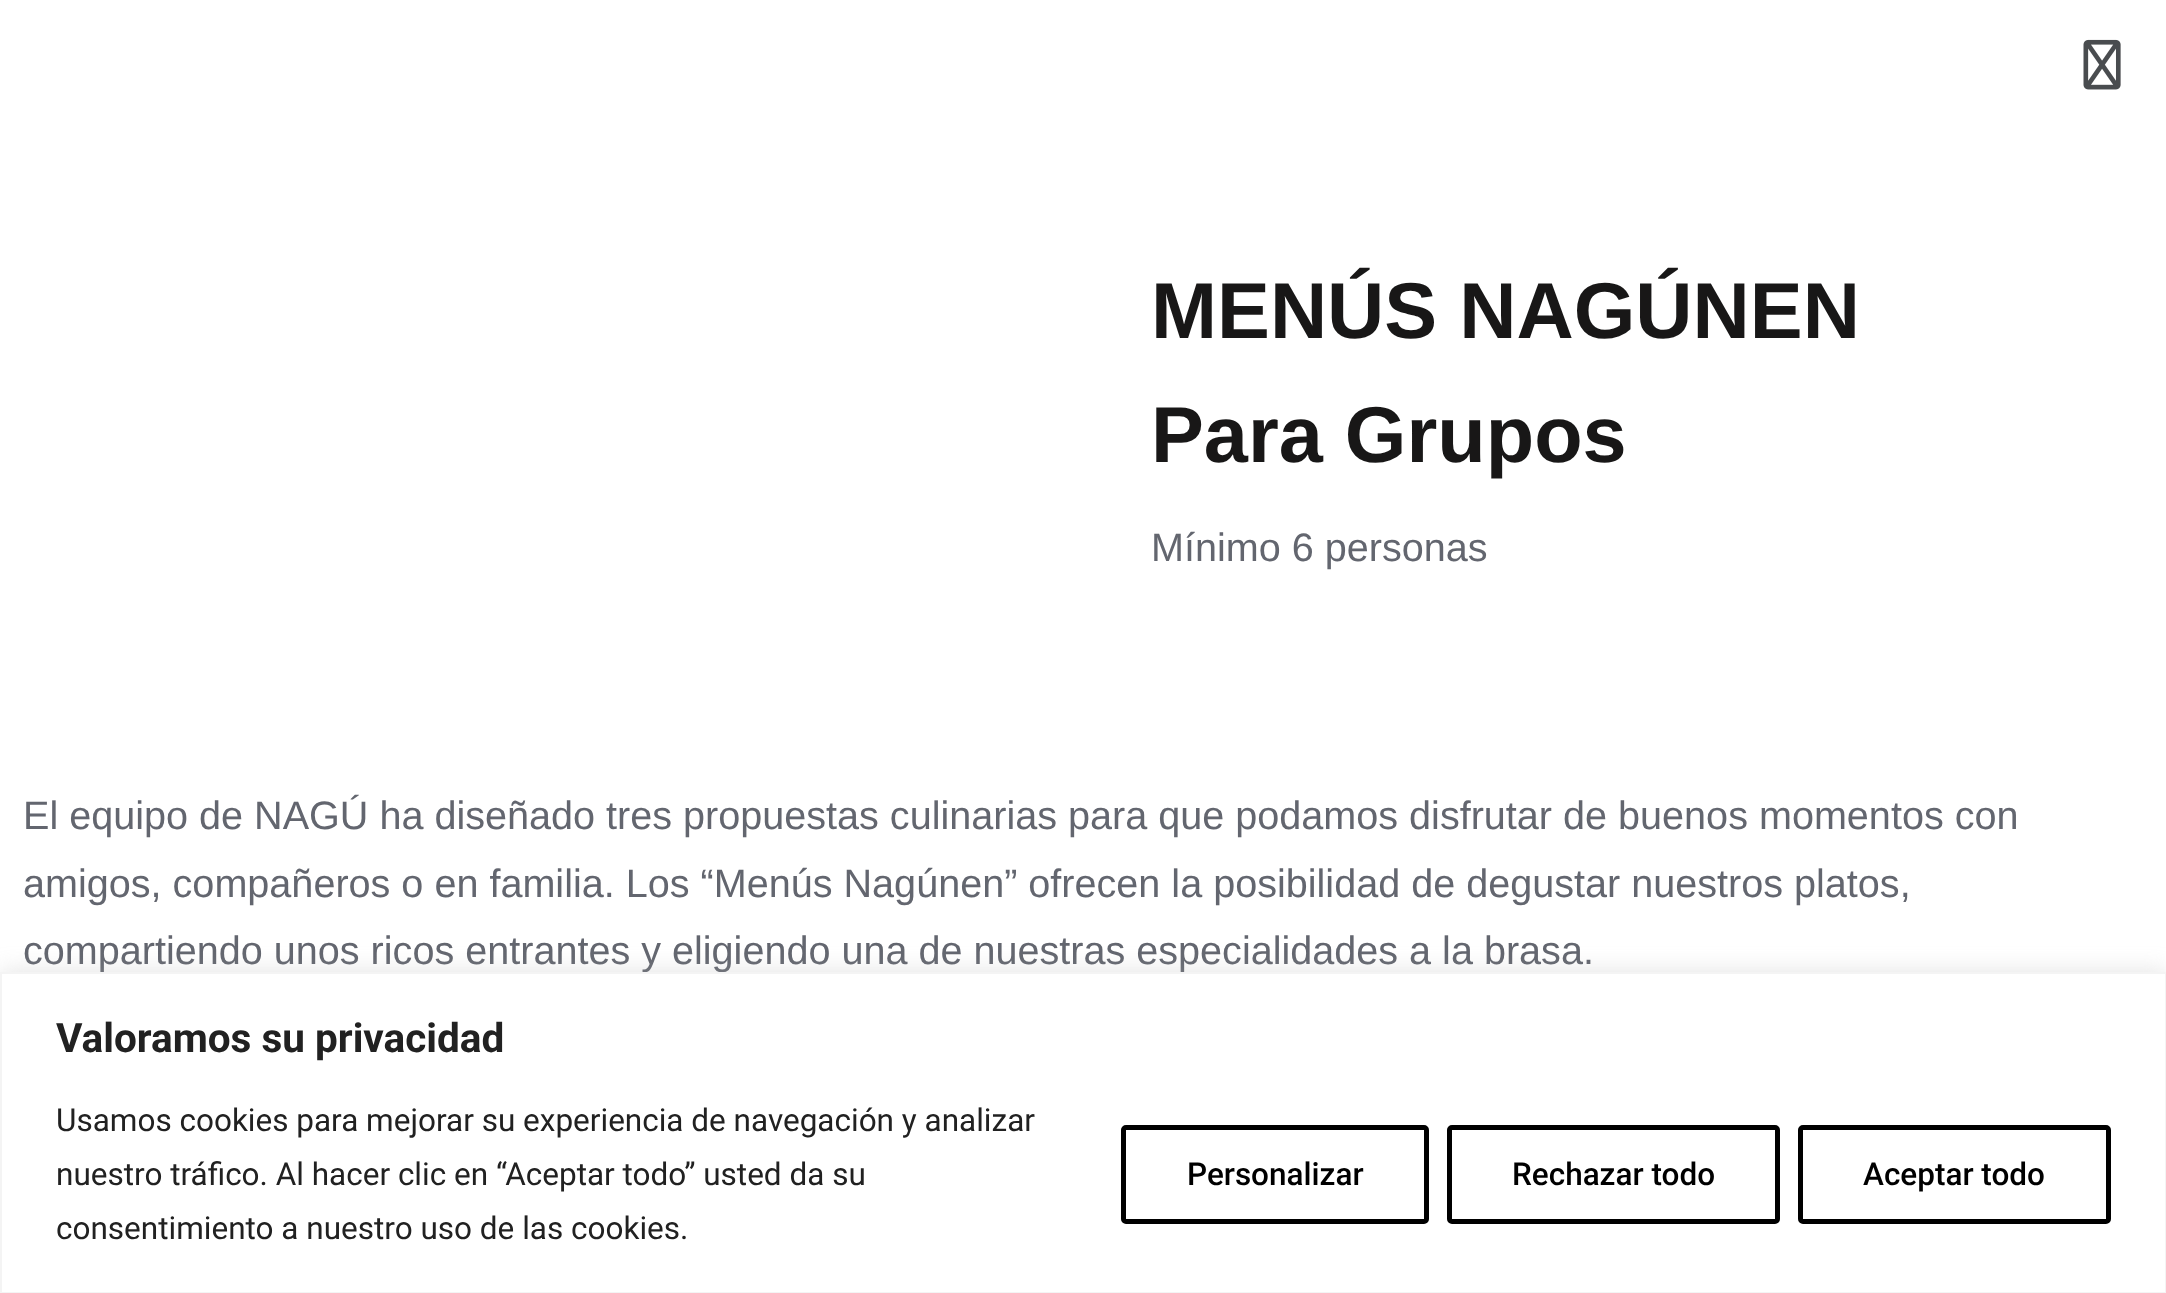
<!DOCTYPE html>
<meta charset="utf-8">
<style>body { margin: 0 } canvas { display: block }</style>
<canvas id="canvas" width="2166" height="1293"></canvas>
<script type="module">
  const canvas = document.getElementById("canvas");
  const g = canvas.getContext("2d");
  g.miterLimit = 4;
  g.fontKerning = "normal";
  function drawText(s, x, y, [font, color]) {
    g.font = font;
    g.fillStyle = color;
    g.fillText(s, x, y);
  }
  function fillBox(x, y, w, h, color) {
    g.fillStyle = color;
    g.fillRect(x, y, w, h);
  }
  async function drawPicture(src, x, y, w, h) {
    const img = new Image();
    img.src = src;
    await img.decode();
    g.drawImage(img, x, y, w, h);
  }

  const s1 = ["bold 79.25px Liberation Sans", "#181717"];
  const s2 = ["39.6px Liberation Sans", "#63666F"];
  const s3 = ["bold 40.5px Roboto", "#212121"];
  const s4 = ["31.5px Roboto", "#212121"];
  const s5 = ["500 31.5px Roboto", "#000000"];

  fillBox(0, 0, 2166, 1293, "#FFFFFF");
  await drawPicture("pic1.png", 2083, 39, 38, 51);
  drawText("MENÚS NAGÚNEN", 1151, 338, s1);
  drawText("Para Grupos", 1151, 462, s1);
  drawText("Mínimo 6 personas", 1151, 561, s2);
  drawText("El equipo de NAGÚ ha diseñado tres propuestas culinarias para que podamos disfrutar de buenos momentos con", 23, 829, s2);
  drawText("amigos, compañeros o en familia. Los “Menús Nagúnen” ofrecen la posibilidad de degustar nuestros platos,", 23, 897, s2);
  drawText("compartiendo unos ricos entrantes y eligiendo una de nuestras especialidades a la brasa.", 23, 964, s2);
  g.fillStyle = "rgba(172, 171, 171, 0.3)";
  g.filter = "blur(11px)";
  g.beginPath();
  g.rect(0, 970, 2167, 322);
  g.fill();
  g.filter = "none";
  g.fillStyle = "#FFFFFF";
  g.beginPath();
  g.rect(1, 973, 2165, 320);
  g.fill();
  g.strokeStyle = "#F4F4F4";
  g.lineWidth = 2;
  g.stroke();
  drawText("Valoramos su privacidad", 56, 1052, s3);
  drawText("Usamos cookies para mejorar su experiencia de navegación y analizar", 56, 1131, s4);
  drawText("nuestro tráfico. Al hacer clic en “Aceptar todo” usted da su", 56, 1185, s4);
  drawText("consentimiento a nuestro uso de las cookies.", 56, 1239, s4);
  g.beginPath();
  g.roundRect(1123.5, 1127.5, 303, 94, 2.5);
  g.strokeStyle = "#000000";
  g.lineWidth = 5;
  g.stroke();
  drawText("Personalizar", 1187, 1185, s5);
  g.beginPath();
  g.roundRect(1449.5, 1127.5, 328, 94, 2.5);
  g.stroke();
  drawText("Rechazar todo", 1512, 1185, s5);
  g.beginPath();
  g.roundRect(1800.5, 1127.5, 308, 94, 2.5);
  g.stroke();
  drawText("Aceptar todo", 1863, 1185, s5);
</script>
